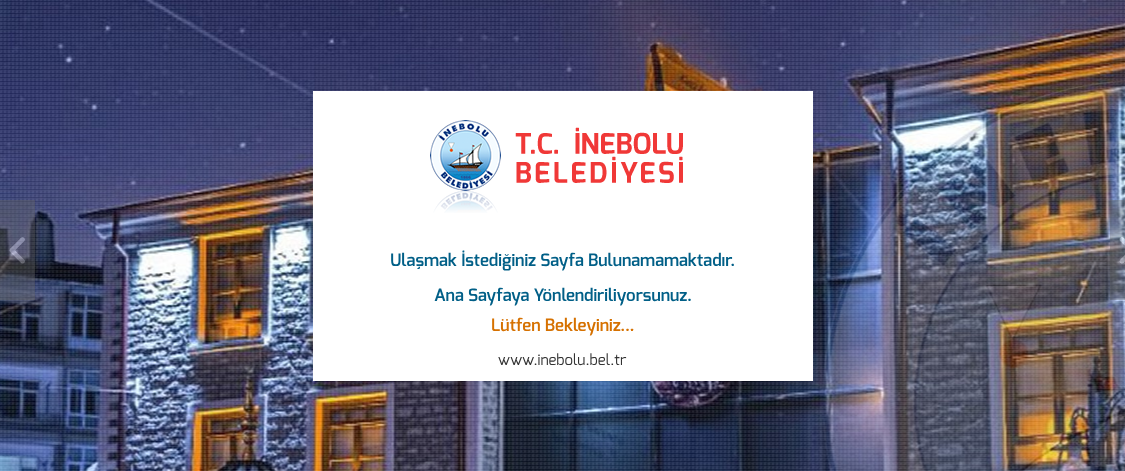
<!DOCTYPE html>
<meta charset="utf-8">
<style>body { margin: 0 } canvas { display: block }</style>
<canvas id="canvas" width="1125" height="471"></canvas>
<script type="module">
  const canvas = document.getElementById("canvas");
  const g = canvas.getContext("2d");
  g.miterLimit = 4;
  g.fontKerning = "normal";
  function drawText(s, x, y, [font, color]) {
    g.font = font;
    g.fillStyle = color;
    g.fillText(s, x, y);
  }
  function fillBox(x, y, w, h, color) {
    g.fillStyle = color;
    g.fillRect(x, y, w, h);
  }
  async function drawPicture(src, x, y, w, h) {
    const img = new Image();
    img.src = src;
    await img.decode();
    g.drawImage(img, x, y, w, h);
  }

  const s1 = ["600 17px Exo", "#015F87"];
  const s2 = ["600 17px Exo", "#D67100"];
  const s3 = ["15px Exo", "#333333"];

  fillBox(0, 0, 1125, 471, "#FFFFFF");
  await drawPicture("pic1.png", 0, 0, 1125, 471);
  await drawPicture("pic2.png", 0, 200, 35, 100);
  await drawPicture("pic3.png", 1110, 200, 15, 100);
  fillBox(313, 91, 500, 290, "#FFFFFF");
  await drawPicture("pic4.png", 430, 120, 253, 93);
  drawText("Ulaşmak İstediğiniz Sayfa Bulunamamaktadır.", 390, 266, s1);
  drawText("Ana Sayfaya Yönlendiriliyorsunuz.", 434, 301, s1);
  drawText("Lütfen Bekleyiniz...", 491, 331, s2);
  drawText("www.inebolu.bel.tr", 498, 365, s3);
</script>
